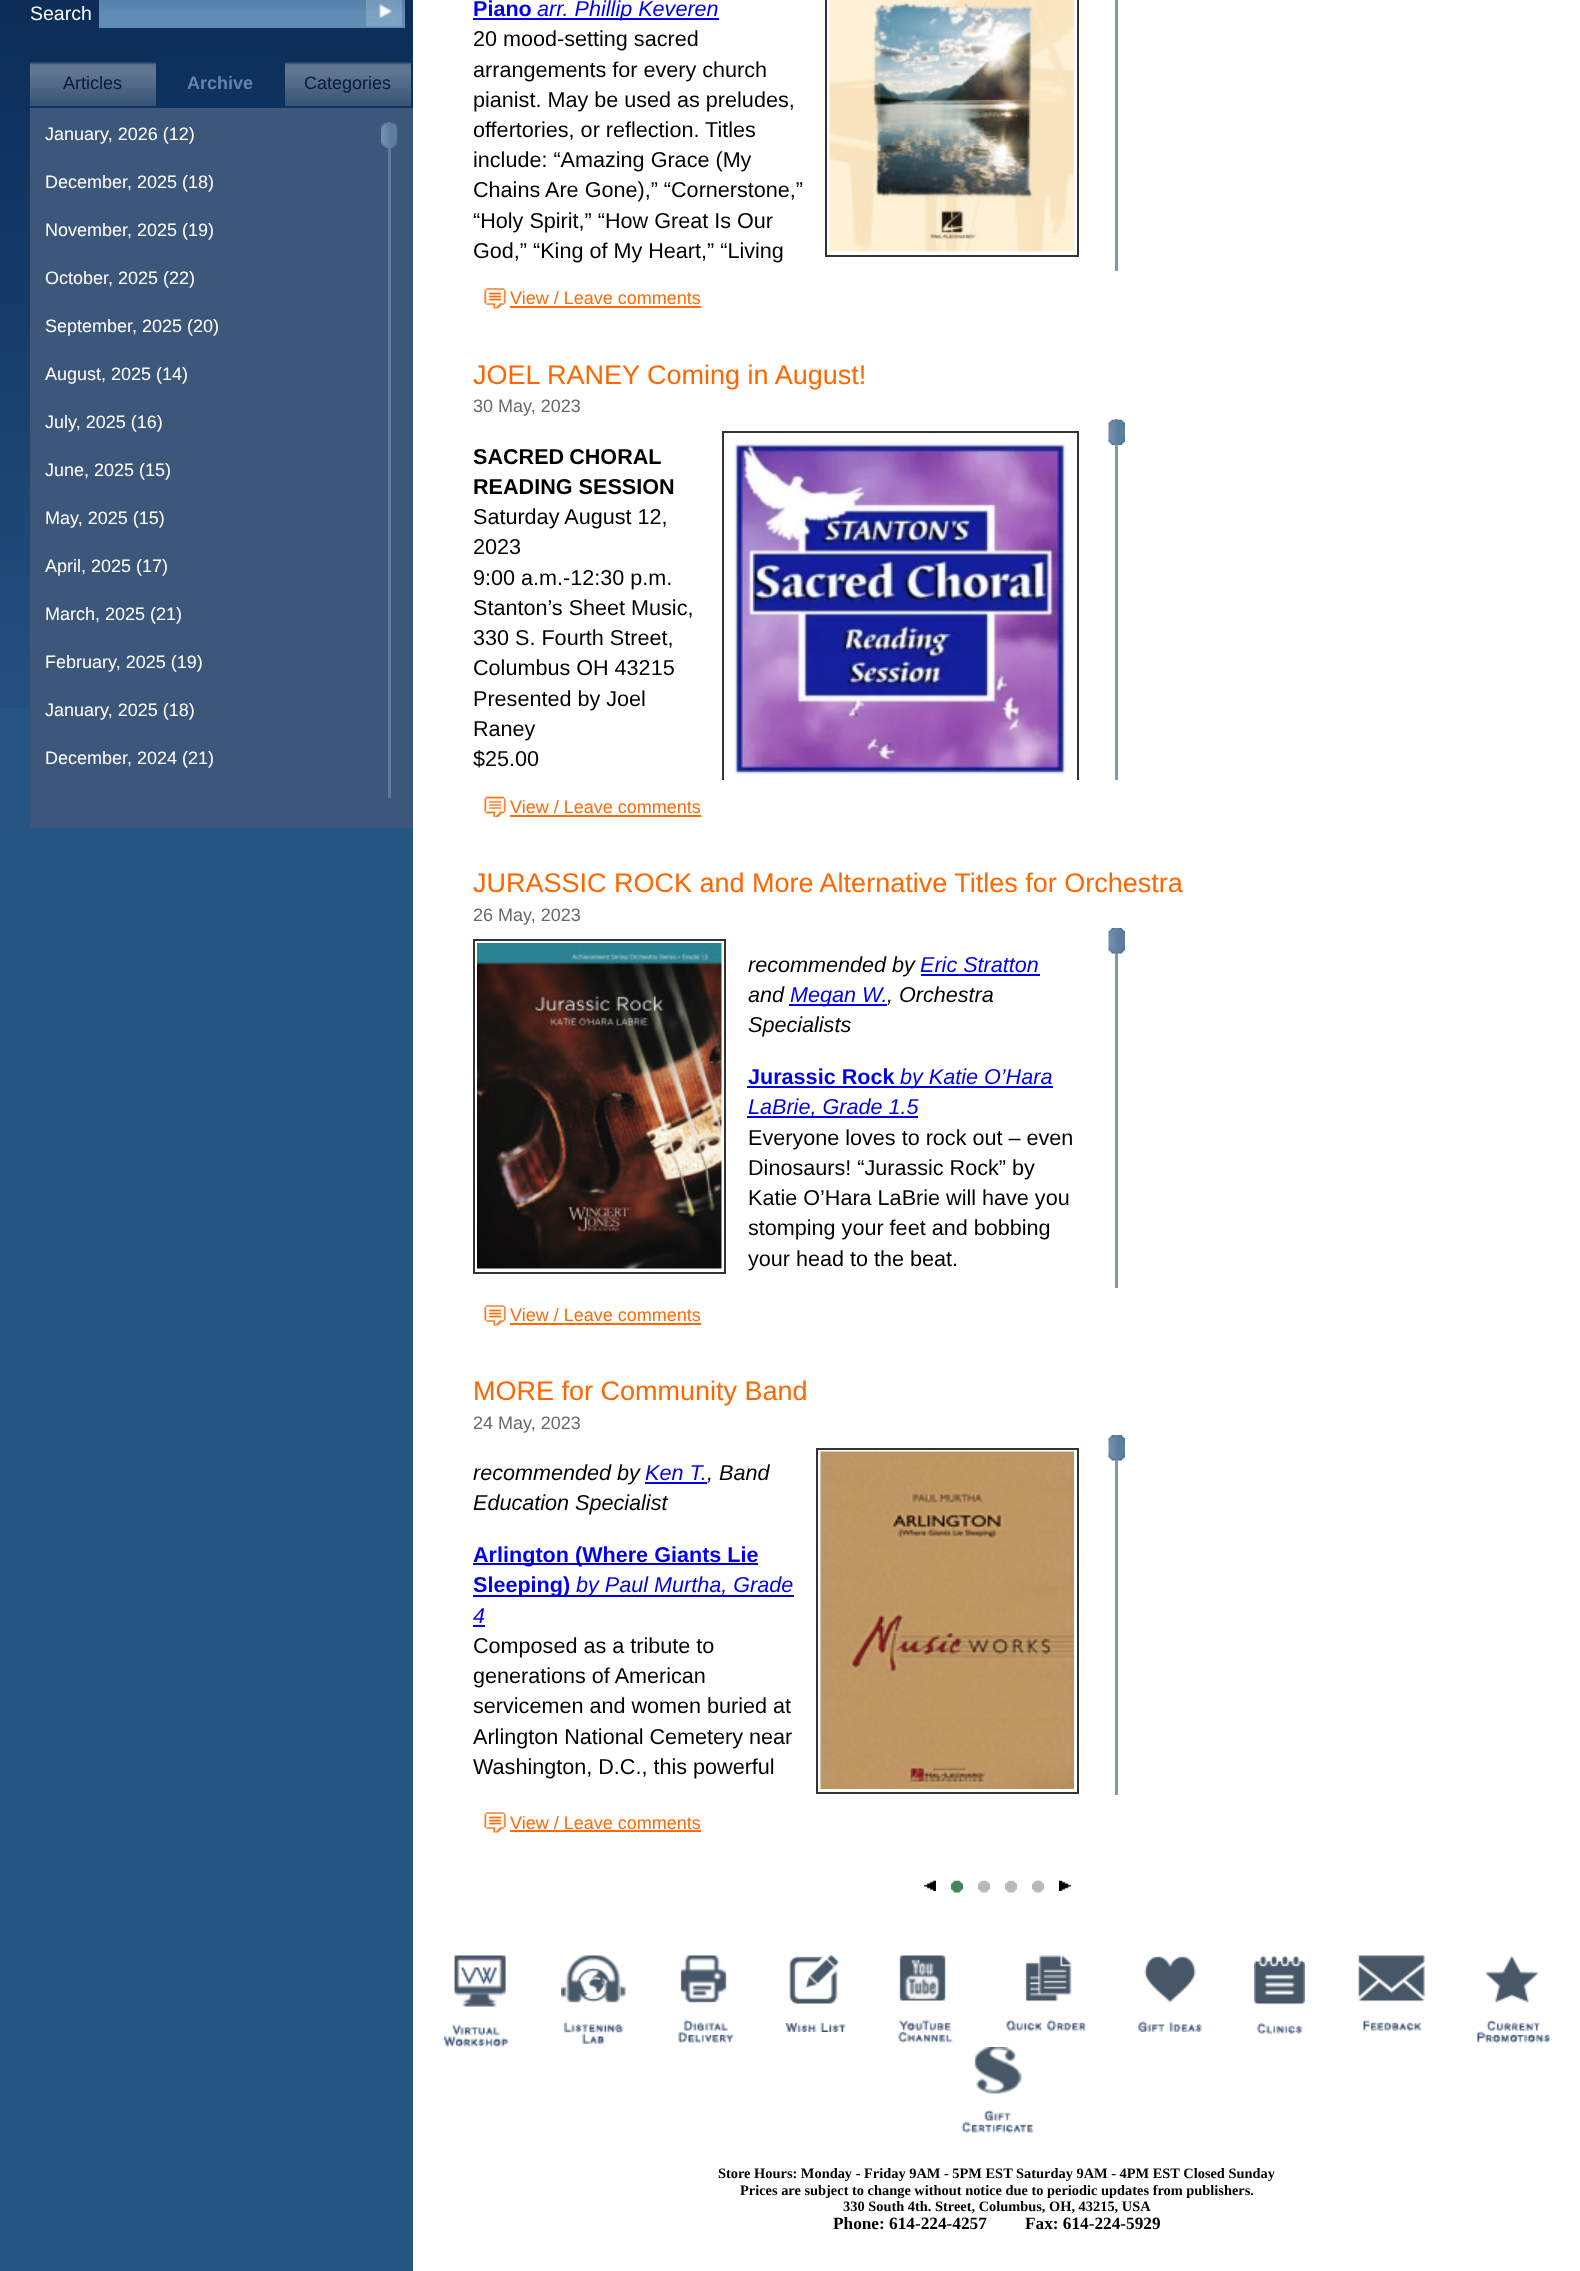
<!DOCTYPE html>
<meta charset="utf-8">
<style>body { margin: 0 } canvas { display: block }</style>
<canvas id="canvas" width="1580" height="2271"></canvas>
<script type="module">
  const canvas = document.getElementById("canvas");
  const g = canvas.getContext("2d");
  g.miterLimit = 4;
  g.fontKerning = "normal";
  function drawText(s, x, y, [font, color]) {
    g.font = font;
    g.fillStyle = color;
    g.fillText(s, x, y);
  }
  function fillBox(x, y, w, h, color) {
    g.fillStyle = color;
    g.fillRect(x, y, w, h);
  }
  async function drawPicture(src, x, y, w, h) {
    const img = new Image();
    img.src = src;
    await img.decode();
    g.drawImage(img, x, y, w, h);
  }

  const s1 = ["19.5px Liberation Sans", "#FFFFFF"];
  const s2 = ["18px Liberation Sans", "#051B3A"];
  const s3 = ["bold 18px Liberation Sans", "#6383AC"];
  const s4 = ["18px Liberation Sans", "#FFFFFF"];
  const s5 = ["bold 21.6px Liberation Sans", "#0000EE"];
  const s6 = ["italic 21.6px Liberation Sans", "#0000EE"];
  const s7 = ["21.6px Liberation Sans", "#000000"];
  const s8 = ["18px Liberation Sans", "#FF6A07"];
  const s9 = ["27px Liberation Sans", "#FF6600"];
  const s10 = ["18px Liberation Sans", "#696969"];
  const s11 = ["bold 21.6px Liberation Sans", "#000000"];
  const s12 = ["italic 21.6px Liberation Sans", "#000000"];
  const s13 = ["bold 14.4px Liberation Serif", "#000000"];
  const s14 = ["bold 17.25px Liberation Serif", "#000000"];

  fillBox(0, 0, 1580, 2271, "#265584");
  await drawPicture("pic1.png", 0, 0, 413, 708);
  await drawPicture("pic2.png", 99, 0, 306, 28);
  drawText("Search", 30, 20, s1);
  await drawPicture("pic3.png", 366, 0, 36, 27);
  await drawPicture("pic4.png", 30, 62, 126, 44);
  drawText("Articles", 63, 89, s2);
  drawText("Archive", 187, 89, s3);
  await drawPicture("pic4.png", 285, 62, 126, 44);
  drawText("Categories", 304, 89, s2);
  fillBox(30, 108, 383, 720, "#3C5779");
  drawText("January, 2026 (12)", 45, 140, s4);
  drawText("December, 2025 (18)", 45, 188, s4);
  drawText("November, 2025 (19)", 45, 236, s4);
  drawText("October, 2025 (22)", 45, 284, s4);
  drawText("September, 2025 (20)", 45, 332, s4);
  drawText("August, 2025 (14)", 45, 380, s4);
  drawText("July, 2025 (16)", 45, 428, s4);
  drawText("June, 2025 (15)", 45, 476, s4);
  drawText("May, 2025 (15)", 45, 524, s4);
  drawText("April, 2025 (17)", 45, 572, s4);
  drawText("March, 2025 (21)", 45, 620, s4);
  drawText("February, 2025 (19)", 45, 668, s4);
  drawText("January, 2025 (18)", 45, 716, s4);
  drawText("December, 2024 (21)", 45, 764, s4);
  fillBox(388, 122, 3, 676, "#607995");
  await drawPicture("pic5.png", 381, 122, 17, 26);
  fillBox(413, 0, 1167, 2271, "#FFFFFF");
  drawText("Piano", 473, 16, s5);
  fillBox(473, 18, 246, 2, "#0000EE");
  drawText("arr. Phillip Keveren", 537, 16, s6);
  drawText("20 mood-setting sacred", 473, 46, s7);
  drawText("arrangements for every church", 473, 77, s7);
  drawText("pianist. May be used as preludes,", 473, 107, s7);
  drawText("offertories, or reflection. Titles", 473, 137, s7);
  drawText("include: “Amazing Grace (My", 473, 167, s7);
  drawText("Chains Are Gone),” “Cornerstone,”", 473, 197, s7);
  drawText("“Holy Spirit,” “How Great Is Our", 473, 228, s7);
  drawText("God,” “King of My Heart,” “Living", 473, 258, s7);
  g.strokeStyle = "#333333";
  g.lineWidth = 2;
  g.strokeRect(826, -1, 252, 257);
  await drawPicture("pic6.png", 829, 0, 245, 252);
  fillBox(1115, 0, 3, 271, "#8297AD");
  await drawPicture("pic7.png", 484, 288, 22, 21);
  drawText("View / Leave comments", 510, 304, s8);
  fillBox(510, 306, 191, 2, "#FF6A07");
  drawText("JOEL RANEY Coming in August!", 473, 384, s9);
  drawText("30 May, 2023", 473, 412, s10);
  g.wordSpacing = "-1px";
  drawText("SACRED CHORAL", 473, 464, s11);
  g.wordSpacing = "0px";
  drawText("READING SESSION", 473, 494, s11);
  drawText("Saturday August 12,", 473, 524, s7);
  drawText("2023", 473, 554, s7);
  drawText("9:00 a.m.-12:30 p.m.", 473, 585, s7);
  drawText("Stanton’s Sheet Music,", 473, 615, s7);
  drawText("330 S. Fourth Street,", 473, 645, s7);
  drawText("Columbus OH 43215", 473, 675, s7);
  drawText("Presented by Joel", 473, 706, s7);
  drawText("Raney", 473, 736, s7);
  drawText("$25.00", 473, 766, s7);
  g.save();
  g.beginPath();
  g.rect(473, 420, 652, 360);
  g.clip();
  g.strokeRect(723, 432, 355, 355);
  g.restore();
  await drawPicture("pic8.png", 732, 438, 342, 339);
  fillBox(1115, 419, 3, 361, "#8297AD");
  await drawPicture("pic9.png", 1108, 419, 17, 26);
  await drawPicture("pic10.png", 484, 796, 22, 21);
  drawText("View / Leave comments", 510, 813, s8);
  fillBox(510, 815, 191, 2, "#FF6A07");
  drawText("JURASSIC ROCK and More Alternative Titles for Orchestra", 473, 892, s9);
  drawText("26 May, 2023", 473, 921, s10);
  g.strokeRect(474, 940, 251, 333);
  await drawPicture("pic11.png", 477, 943, 245, 326);
  drawText("recommended by", 748, 972, s12);
  drawText("Eric Stratton", 920, 972, s6);
  fillBox(921, 974, 119, 2, "#0000EE");
  drawText("and", 748, 1002, s12);
  fillBox(789, 1004, 98, 2, "#0000EE");
  drawText("Megan W.", 790, 1002, s6);
  drawText(", Orchestra", 887, 1002, s12);
  drawText("Specialists", 748, 1032, s12);
  drawText("Jurassic Rock", 748, 1084, s5);
  fillBox(747, 1086, 306, 2, "#0000EE");
  drawText("by Katie O’Hara", 900, 1084, s6);
  fillBox(747, 1116, 171, 2, "#0000EE");
  drawText("LaBrie, Grade 1.5", 748, 1114, s6);
  drawText("Everyone loves to rock out – even", 748, 1145, s7);
  drawText("Dinosaurs! “Jurassic Rock” by", 748, 1175, s7);
  drawText("Katie O’Hara LaBrie will have you", 748, 1205, s7);
  drawText("stomping your feet and bobbing", 748, 1235, s7);
  drawText("your head to the beat.", 748, 1266, s7);
  fillBox(1115, 953, 3, 335, "#8297AD");
  await drawPicture("pic12.png", 1108, 928, 17, 26);
  await drawPicture("pic7.png", 484, 1305, 22, 21);
  drawText("View / Leave comments", 510, 1321, s8);
  fillBox(510, 1323, 191, 2, "#FF6A07");
  drawText("MORE for Community Band", 473, 1400, s9);
  drawText("24 May, 2023", 473, 1429, s10);
  drawText("recommended by", 473, 1480, s12);
  drawText("Ken T.", 645, 1480, s6);
  drawText(", Band", 707, 1480, s12);
  fillBox(645, 1482, 62, 2, "#0000EE");
  drawText("Education Specialist", 473, 1510, s12);
  g.strokeRect(817, 1449, 261, 344);
  await drawPicture("pic13.png", 820, 1451, 254, 338);
  fillBox(473, 1563, 285, 2, "#0000EE");
  drawText("Arlington (Where Giants Lie", 473, 1562, s5);
  fillBox(473, 1595, 321, 2, "#0000EE");
  drawText("Sleeping)", 473, 1592, s5);
  drawText("by Paul Murtha, Grade", 576, 1592, s6);
  drawText("4", 473, 1623, s6);
  fillBox(473, 1625, 12, 2, "#0000EE");
  drawText("Composed as a tribute to", 473, 1653, s7);
  drawText("generations of American", 473, 1683, s7);
  drawText("servicemen and women buried at", 473, 1713, s7);
  drawText("Arlington National Cemetery near", 473, 1744, s7);
  drawText("Washington, D.C., this powerful", 473, 1774, s7);
  fillBox(1115, 1460, 3, 335, "#8297AD");
  await drawPicture("pic12.png", 1108, 1435, 17, 26);
  await drawPicture("pic7.png", 484, 1812, 22, 21);
  drawText("View / Leave comments", 510, 1829, s8);
  fillBox(510, 1830, 191, 2, "#FF6A07");
  await drawPicture("pic14.png", 924, 1880, 12, 11);
  await drawPicture("pic15.png", 951, 1880, 12, 13);
  await drawPicture("pic16.png", 978, 1880, 12, 13);
  await drawPicture("pic16.png", 1005, 1880, 12, 13);
  await drawPicture("pic17.png", 1032, 1880, 12, 13);
  await drawPicture("pic18.png", 1059, 1880, 12, 11);
  await drawPicture("pic19.png", 444, 1955, 65, 92);
  await drawPicture("pic20.png", 561, 1955, 65, 89);
  await drawPicture("pic21.png", 678, 1955, 56, 88);
  await drawPicture("pic22.png", 786, 1955, 60, 77);
  await drawPicture("pic23.png", 898, 1955, 55, 88);
  await drawPicture("pic24.png", 1006, 1955, 80, 76);
  await drawPicture("pic25.png", 1138, 1955, 64, 77);
  await drawPicture("pic26.png", 1254, 1955, 51, 79);
  await drawPicture("pic27.png", 1357, 1955, 68, 76);
  await drawPicture("pic28.png", 1477, 1955, 73, 88);
  await drawPicture("pic29.png", 961, 2047, 73, 86);
  drawText("Store Hours: Monday - Friday 9AM - 5PM EST Saturday 9AM - 4PM EST Closed Sunday", 718, 2178, s13);
  drawText("Prices are subject to change without notice due to periodic updates from publishers.", 740, 2195, s13);
  drawText("330 South 4th. Street, Columbus, OH, 43215, USA", 843, 2211, s13);
  drawText("Phone: 614-224-4257", 833, 2229, s14);
  drawText("Fax: 614-224-5929", 1025, 2229, s14);
</script>
